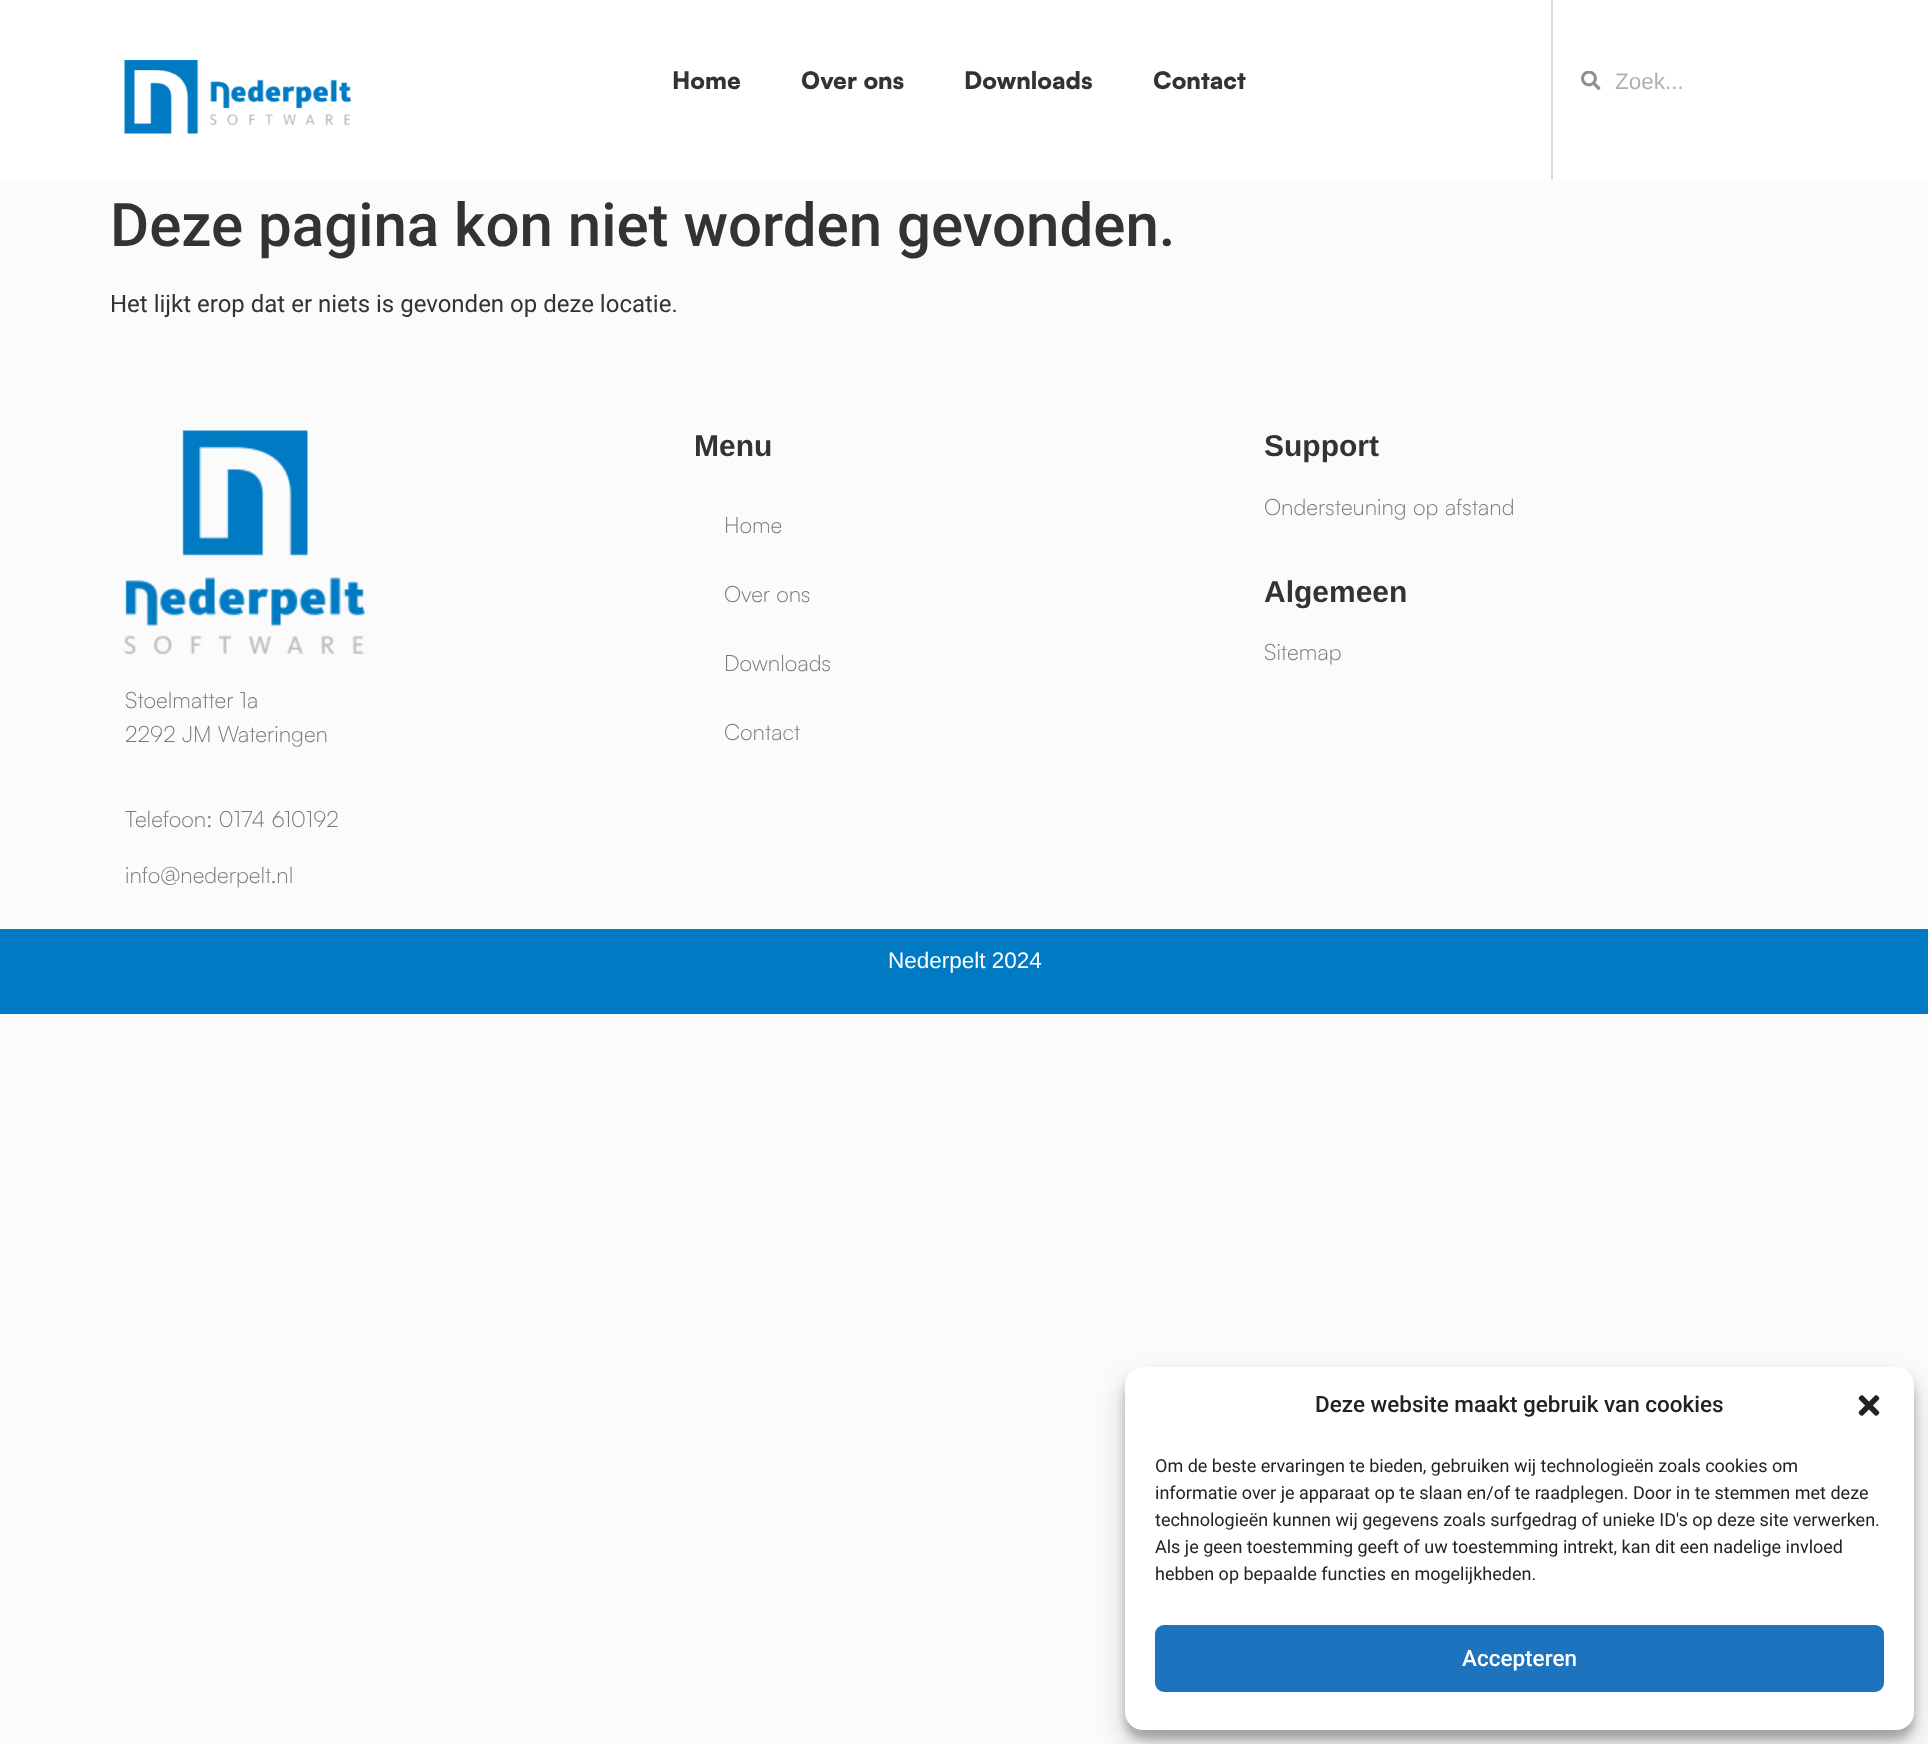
<!DOCTYPE html>
<meta charset="utf-8">
<style>body { margin: 0 } canvas { display: block }</style>
<canvas id="canvas" width="1928" height="1744"></canvas>
<script type="module">
  const canvas = document.getElementById("canvas");
  const g = canvas.getContext("2d");
  g.miterLimit = 4;
  g.fontKerning = "normal";
  function drawText(s, x, y, [font, color]) {
    g.font = font;
    g.fillStyle = color;
    g.fillText(s, x, y);
  }
  function fillBox(x, y, w, h, color) {
    g.fillStyle = color;
    g.fillRect(x, y, w, h);
  }
  function fillRounded(x, y, w, h, r, color) {
    g.fillStyle = color;
    g.beginPath();
    g.roundRect(x, y, w, h, r);
    g.fill();
  }
  async function drawPicture(src, x, y, w, h) {
    const img = new Image();
    img.src = src;
    await img.decode();
    g.drawImage(img, x, y, w, h);
  }

  const s1 = ["900 24px Satoshi", "#333333"];
  const s2 = ["22.5px Liberation Sans", "#AFAFAF"];
  const s3 = ["500 60px Roboto", "#333333"];
  const s4 = ["24px Roboto", "#333333"];
  const s5 = ["bold 30px Liberation Sans", "#333333"];
  const s6 = ["300 22.5px Satoshi", "#7A7A7A"];
  const s7 = ["22.5px Liberation Sans", "#FFFFFF"];
  const s8 = ["500 22.5px Roboto", "#222222"];
  const s9 = ["18px Roboto", "#222222"];
  const s10 = ["500 22.5px Roboto", "#FFFFFF"];

  fillBox(0, 0, 1928, 1744, "#FBFBFB");
  fillBox(0, 0, 1928, 179, "#FFFFFF");
  await drawPicture("pic1.png", 124, 60, 227, 74);
  drawText("Home", 672, 89, s1);
  drawText("Over ons", 801, 89, s1);
  drawText("Downloads", 964, 89, s1);
  drawText("Contact", 1153, 89, s1);
  fillBox(1551, 0, 2, 179, "#D6DBD7");
  await drawPicture("pic2.png", 1581, 71, 20, 19);
  drawText("Zoek...", 1615, 89, s2);
  drawText("Deze pagina kon niet worden gevonden.", 110, 246, s3);
  drawText("Het lijkt erop dat er niets is gevonden op deze locatie.", 110, 312, s4);
  drawText("Menu", 694, 456, s5);
  drawText("Home", 724, 533, s6);
  drawText("Over ons", 724, 602, s6);
  drawText("Downloads", 724, 671, s6);
  drawText("Contact", 724, 740, s6);
  drawText("Support", 1264, 456, s5);
  drawText("Ondersteuning op afstand", 1264, 515, s6);
  drawText("Algemeen", 1264, 602, s5);
  drawText("Sitemap", 1264, 660, s6);
  await drawPicture("pic3.png", 124, 430, 241, 224);
  drawText("Stoelmatter 1a", 125, 708, s6);
  drawText("2292 JM Wateringen", 125, 742, s6);
  drawText("Telefoon: 0174 610192", 125, 827, s6);
  drawText("info@nederpelt.nl", 125, 883, s6);
  fillBox(0, 929, 1928, 85, "#007BC3");
  drawText("Nederpelt 2024", 888, 968, s7);
  g.fillStyle = "rgba(0, 0, 0, 0.23)";
  g.filter = "blur(4.5px)";
  g.beginPath();
  g.roundRect(1125, 1376, 789, 363, 18);
  g.fill();
  g.filter = "none";
  g.fillStyle = "rgba(0, 0, 0, 0.19)";
  g.filter = "blur(15px)";
  g.beginPath();
  g.roundRect(1125, 1382, 789, 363, 18);
  g.fill();
  g.filter = "none";
  fillRounded(1125, 1367, 789, 363, 18, "#FFFFFF");
  drawText("Deze website maakt gebruik van cookies", 1315, 1412, s8);
  await drawPicture("pic4.png", 1858, 1395, 22, 21);
  drawText("Om de beste ervaringen te bieden, gebruiken wij technologieën zoals cookies om", 1155, 1472, s9);
  drawText("informatie over je apparaat op te slaan en/of te raadplegen. Door in te stemmen met deze", 1155, 1499, s9);
  drawText("technologieën kunnen wij gegevens zoals surfgedrag of unieke ID's op deze site verwerken.", 1155, 1526, s9);
  drawText("Als je geen toestemming geeft of uw toestemming intrekt, kan dit een nadelige invloed", 1155, 1553, s9);
  drawText("hebben op bepaalde functies en mogelijkheden.", 1155, 1580, s9);
  g.fillStyle = "#1E73BE";
  g.beginPath();
  g.roundRect(1156, 1626, 727, 65, 8);
  g.fill();
  g.strokeStyle = "#1E73BE";
  g.lineWidth = 2;
  g.stroke();
  drawText("Accepteren", 1462, 1666, s10);
</script>
